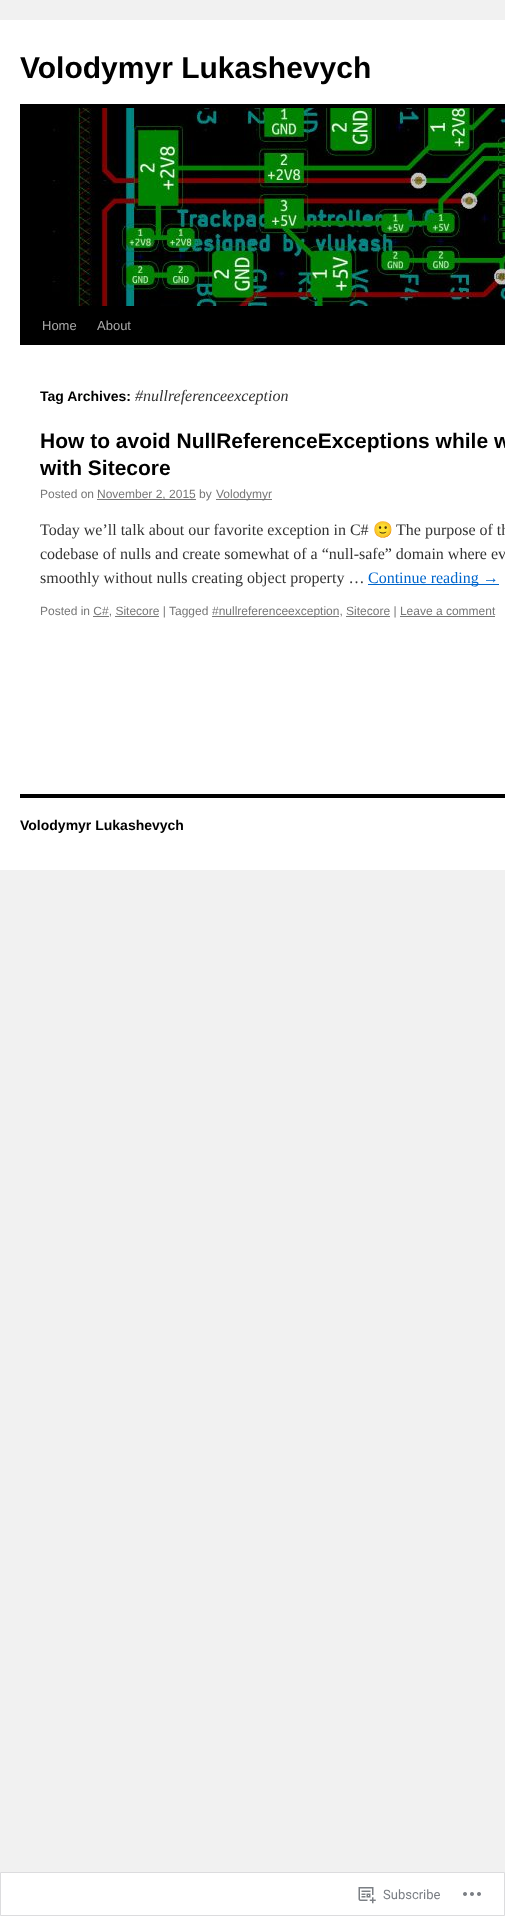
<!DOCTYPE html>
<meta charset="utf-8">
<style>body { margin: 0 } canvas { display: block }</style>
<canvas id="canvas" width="505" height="1916"></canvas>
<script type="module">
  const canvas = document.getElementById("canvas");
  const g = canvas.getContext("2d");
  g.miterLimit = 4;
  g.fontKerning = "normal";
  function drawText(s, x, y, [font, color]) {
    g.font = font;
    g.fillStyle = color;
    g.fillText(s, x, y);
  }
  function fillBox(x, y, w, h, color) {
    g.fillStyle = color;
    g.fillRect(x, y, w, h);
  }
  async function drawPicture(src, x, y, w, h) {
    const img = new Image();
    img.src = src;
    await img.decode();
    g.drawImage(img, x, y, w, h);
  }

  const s1 = ["bold 30px Liberation Sans", "#000000"];
  const s2 = ["13px Liberation Sans", "#AAAAAA"];
  const s3 = ["bold 14px Liberation Sans", "#000000"];
  const s4 = ["italic 16px Liberation Serif", "#333333"];
  const s5 = ["bold 21px Liberation Sans", "#000000"];
  const s6 = ["12px Liberation Sans", "#777777"];
  const s7 = ["16px Liberation Serif", "#333333"];
  const s8 = ["16px Noto Color Emoji", "#333333"];
  const s9 = ["16px Liberation Serif", "#0066CC"];
  const s10 = ["13px Roboto", "#7A7E84"];

  fillBox(0, 0, 505, 1916, "#F1F1F1");
  fillBox(0, 20, 505, 850, "#FFFFFF");
  drawText("Volodymyr Lukashevych", 20, 78, s1);
  fillBox(20, 104, 485, 4, "#000000");
  fillBox(20, 306, 485, 39, "#000000");
  await drawPicture("pic1.png", 20, 108, 485, 198);
  drawText("Home", 42, 330, s2);
  drawText("About", 97, 330, s2);
  drawText("Tag Archives:", 40, 401, s3);
  drawText("#nullreferenceexception", 135, 401, s4);
  drawText("How to avoid NullReferenceExceptions while w", 40, 448, s5);
  drawText("with Sitecore", 40, 475, s5);
  drawText("Posted on", 40, 498, s6);
  fillBox(97, 499, 99, 1, "#777777");
  drawText("November 2, 2015 by", 97, 498, s6);
  fillBox(216, 499, 56, 1, "#777777");
  drawText("Volodymyr", 216, 498, s6);
  drawText("Today we’ll talk about our favorite exception in C#", 40, 535, s7);
  drawText("🙂", 373, 535, s8);
  drawText("The purpose of th", 396, 535, s7);
  drawText("codebase of nulls and create somewhat of a “null-safe” domain where ev", 40, 559, s7);
  drawText("smoothly without nulls creating object property …", 40, 583, s7);
  fillBox(368, 584, 131, 1, "#0066CC");
  drawText("Continue reading →", 368, 583, s9);
  drawText("Posted in C#, Sitecore | Tagged", 40, 615, s6);
  fillBox(93, 616, 16, 1, "#777777");
  fillBox(115, 616, 44, 1, "#777777");
  fillBox(212, 616, 127, 1, "#777777");
  drawText("#nullreferenceexception, Sitecore | Leave a comment", 212, 615, s6);
  fillBox(346, 616, 44, 1, "#777777");
  fillBox(400, 616, 95, 1, "#777777");
  fillBox(20, 794, 485, 4, "#000000");
  drawText("Volodymyr Lukashevych", 20, 830, s3);
  g.fillStyle = "#FFFFFF";
  g.beginPath();
  g.rect(0.5, 1872.5, 504, 43);
  g.fill();
  g.strokeStyle = "#DCDCDE";
  g.stroke();
  await drawPicture("pic2.png", 358, 1887, 18, 17);
  drawText("Subscribe", 383, 1899, s10);
  await drawPicture("pic3.png", 463, 1892, 18, 4);
</script>
